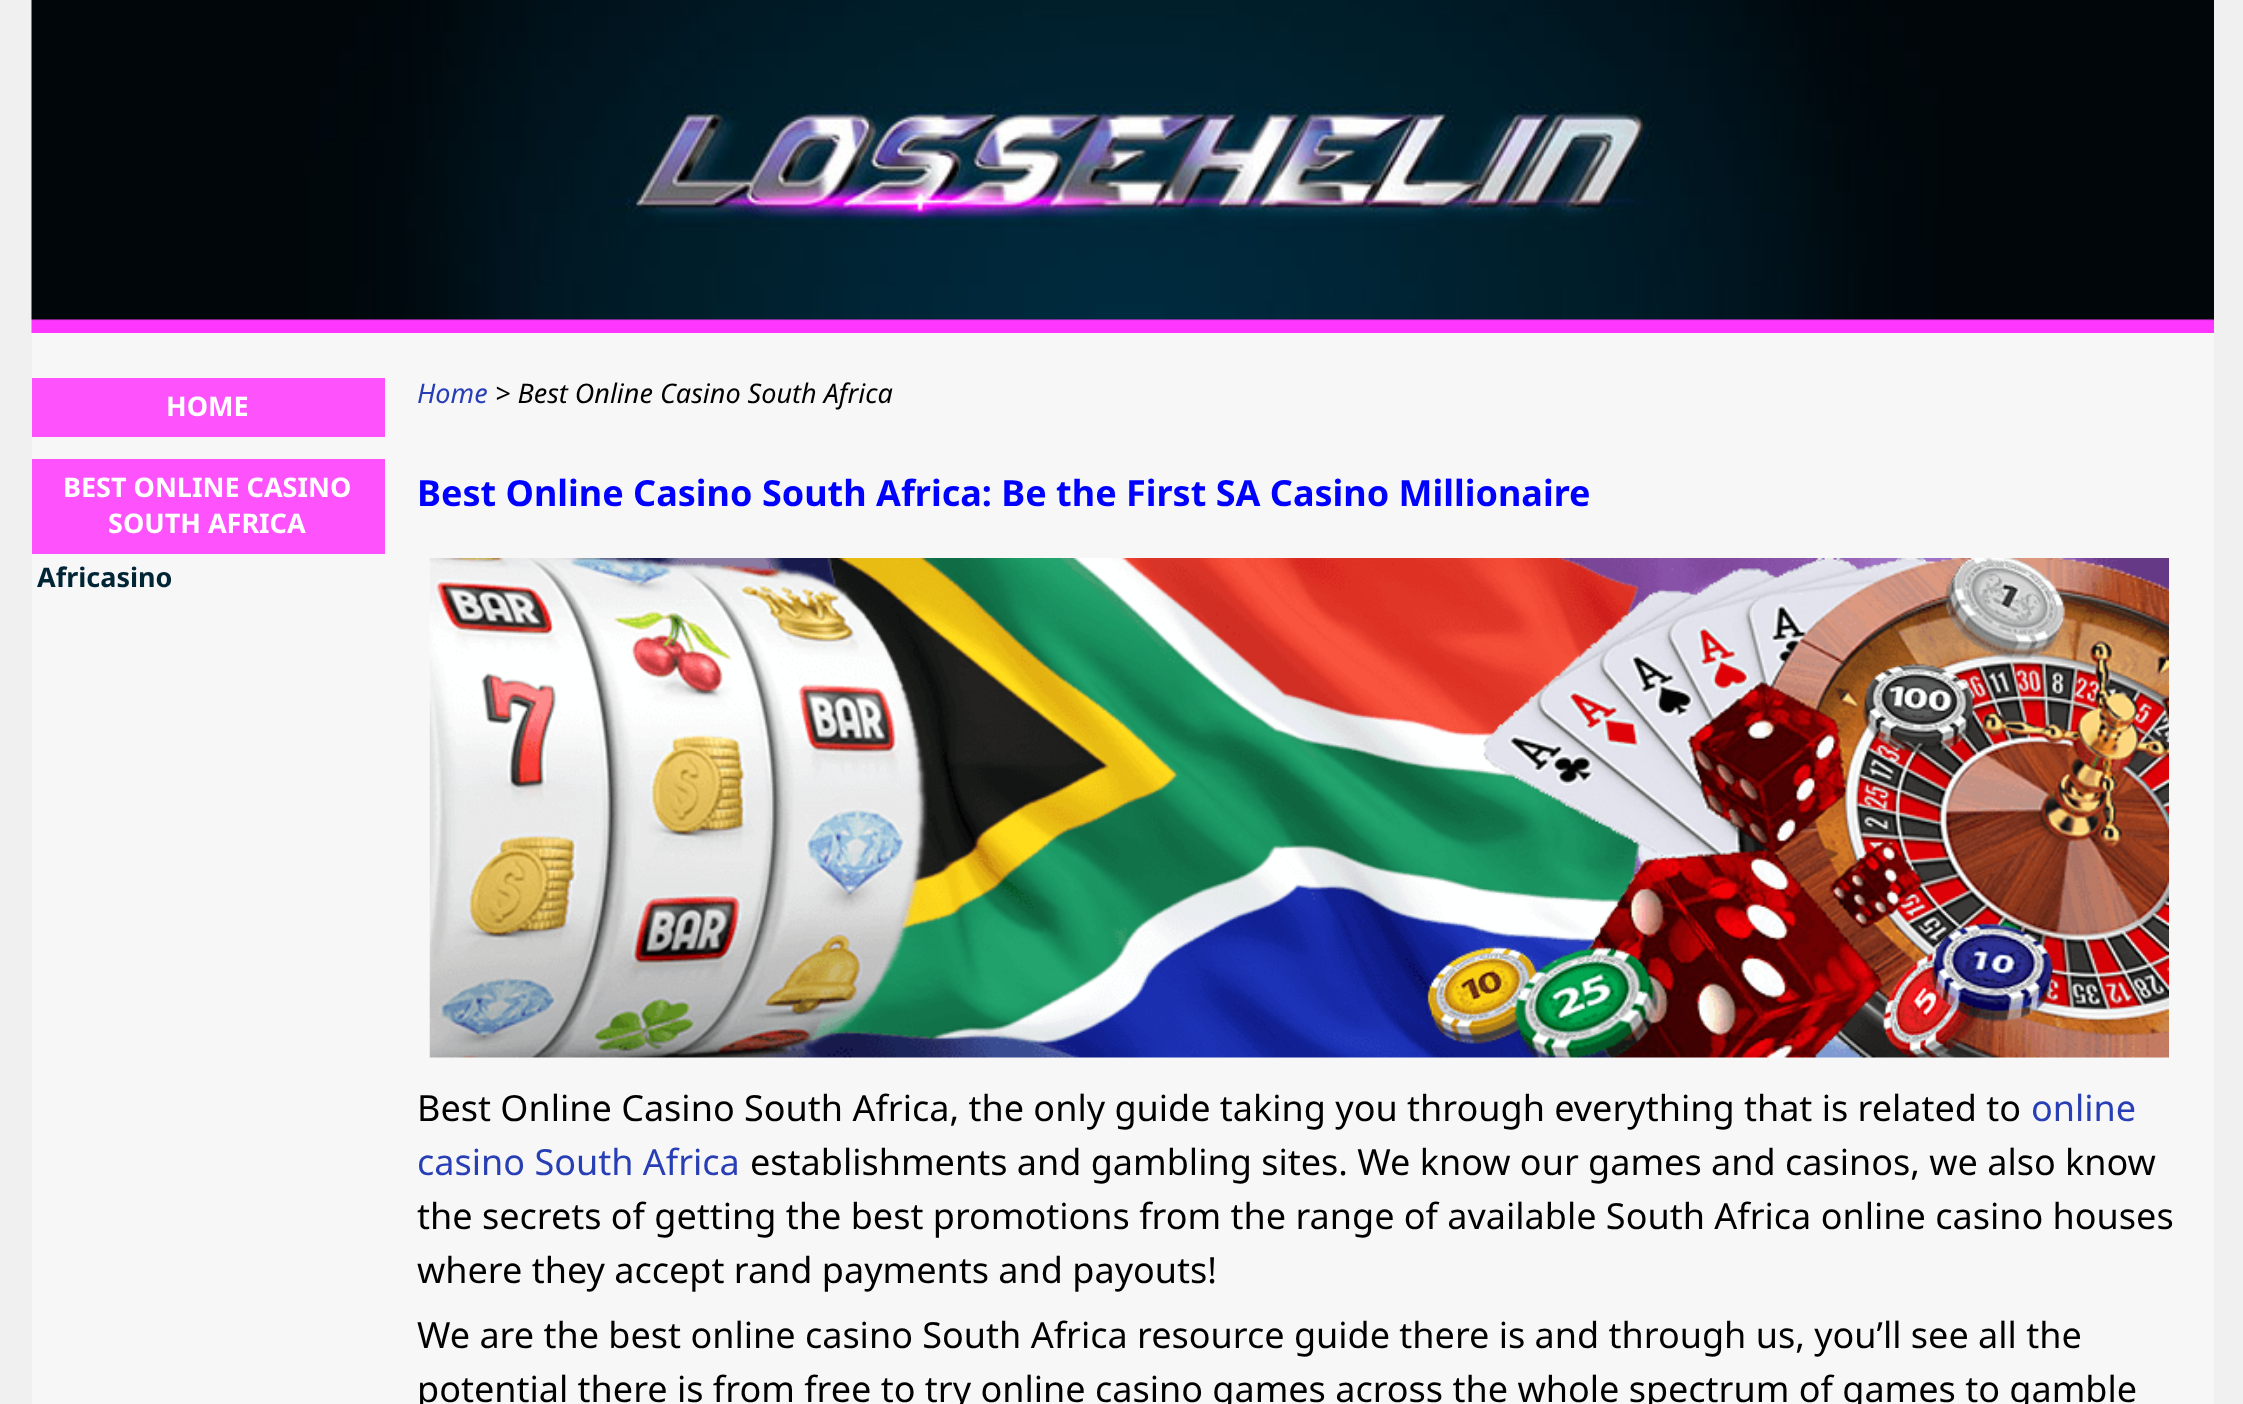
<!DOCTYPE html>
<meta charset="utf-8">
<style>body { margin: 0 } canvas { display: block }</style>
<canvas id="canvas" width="2243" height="1404"></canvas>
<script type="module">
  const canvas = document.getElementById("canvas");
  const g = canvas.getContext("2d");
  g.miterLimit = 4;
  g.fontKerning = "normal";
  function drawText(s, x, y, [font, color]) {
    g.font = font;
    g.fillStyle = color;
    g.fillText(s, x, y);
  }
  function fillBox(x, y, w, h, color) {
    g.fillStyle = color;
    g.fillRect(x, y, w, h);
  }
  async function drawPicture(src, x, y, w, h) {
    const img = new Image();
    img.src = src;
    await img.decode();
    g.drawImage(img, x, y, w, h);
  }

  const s1 = ["bold 27px Noto Sans", "#FFFFFF"];
  const s2 = ["bold 27px Noto Sans", "#002535"];
  const s3 = ["italic 27px Noto Sans", "#283EB5"];
  const s4 = ["italic 27px Noto Sans", "#000000"];
  const s5 = ["bold 36px Noto Sans", "#0000FF"];
  const s6 = ["36px Noto Sans", "#000000"];
  const s7 = ["36px Noto Sans", "#283EB5"];

  fillBox(0, 0, 2243, 1404, "#F0F0F0");
  fillBox(32, 333, 2182, 1071, "#F7F7F7");
  await drawPicture("pic1.png", 31, 0, 2183, 333);
  fillBox(32, 378, 353, 59, "#FD52FC");
  drawText("HOME", 166, 416, s1);
  fillBox(32, 459, 353, 95, "#FD52FC");
  drawText("BEST ONLINE CASINO", 63, 497, s1);
  drawText("SOUTH AFRICA", 108, 533, s1);
  drawText("Africasino", 37, 587, s2);
  drawText("Home", 417, 403, s3);
  drawText("> Best Online Casino South Africa", 495, 403, s4);
  drawText("Best Online Casino South Africa: Be the First SA Casino Millionaire", 417, 506, s5);
  await drawPicture("pic2.png", 429, 558, 1740, 500);
  drawText("Best Online Casino South Africa, the only guide taking you through everything that is related to", 417, 1121, s6);
  drawText("online", 2031, 1121, s7);
  drawText("casino South Africa", 417, 1175, s7);
  drawText("establishments and gambling sites. We know our games and casinos, we also know", 750, 1175, s6);
  drawText("the secrets of getting the best promotions from the range of available South Africa online casino houses", 417, 1229, s6);
  drawText("where they accept rand payments and payouts!", 417, 1283, s6);
  drawText("We are the best online casino South Africa resource guide there is and through us, you’ll see all the", 417, 1348, s6);
  drawText("potential there is from free to try online casino games across the whole spectrum of games to gamble", 417, 1402, s6);
</script>
